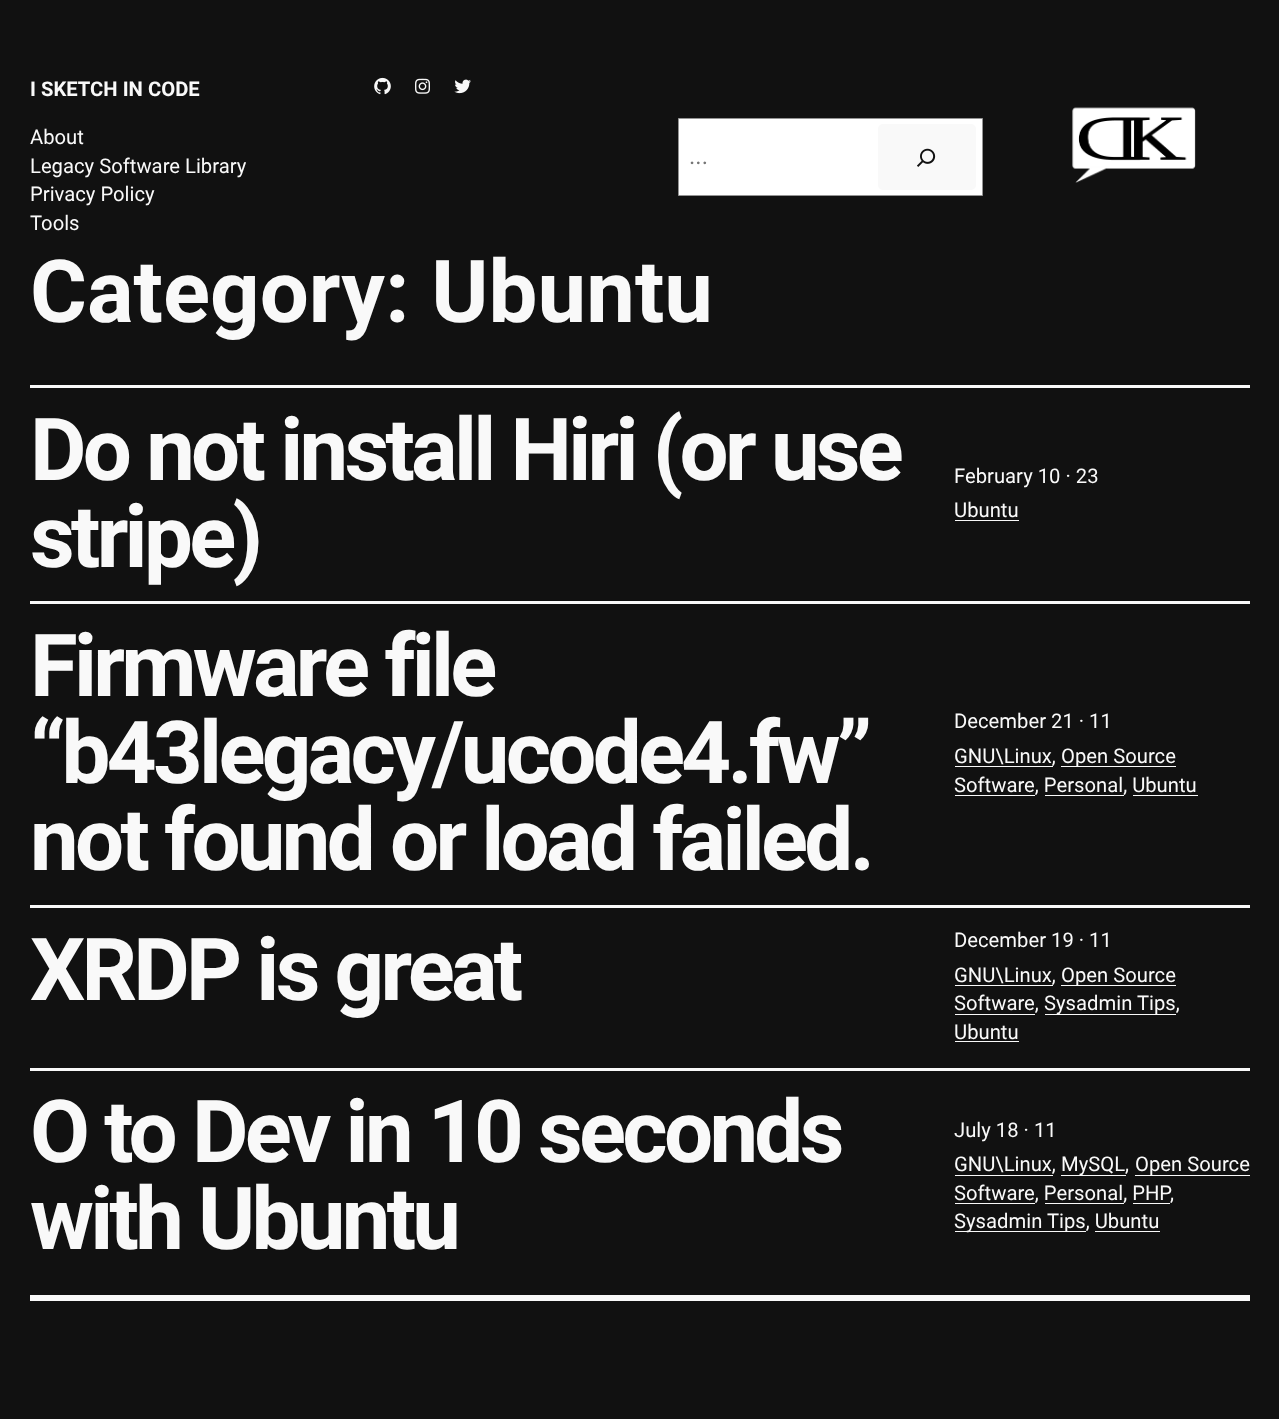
<!DOCTYPE html>
<meta charset="utf-8">
<style>body { margin: 0 } canvas { display: block }</style>
<canvas id="canvas" width="1279" height="1419"></canvas>
<script type="module">
  const canvas = document.getElementById("canvas");
  const g = canvas.getContext("2d");
  g.miterLimit = 4;
  g.fontKerning = "normal";
  function drawText(s, x, y, [font, color]) {
    g.font = font;
    g.fillStyle = color;
    g.fillText(s, x, y);
  }
  function fillBox(x, y, w, h, color) {
    g.fillStyle = color;
    g.fillRect(x, y, w, h);
  }
  function fillRounded(x, y, w, h, r, color) {
    g.fillStyle = color;
    g.beginPath();
    g.roundRect(x, y, w, h, r);
    g.fill();
  }
  async function drawPicture(src, x, y, w, h) {
    const img = new Image();
    img.src = src;
    await img.decode();
    g.drawImage(img, x, y, w, h);
  }

  const s1 = ["bold 20.25px Roboto", "#F9F9F9"];
  const s2 = ["20.25px Roboto", "#F9F9F9"];
  const s3 = ["24px Roboto", "#757575"];
  const s4 = ["bold 87px Roboto", "#F9F9F9"];

  fillBox(0, 0, 1279, 1419, "#111111");
  drawText("I SKETCH IN CODE", 30, 96, s1);
  drawText("About", 30, 144, s2);
  drawText("Legacy Software Library", 30, 173, s2);
  drawText("Privacy Policy", 30, 201, s2);
  drawText("Tools", 30, 230, s2);
  await drawPicture("pic1.png", 374, 77, 17, 18);
  await drawPicture("pic2.png", 415, 78, 15, 16);
  await drawPicture("pic3.png", 454, 79, 17, 15);
  g.fillStyle = "#FFFFFF";
  g.beginPath();
  g.rect(678.5, 118.5, 304, 77);
  g.fill();
  g.strokeStyle = "#949494";
  g.stroke();
  drawText("...", 689, 164, s3);
  fillRounded(878, 124, 98, 66, 5, "#F9F9F9");
  await drawPicture("pic4.png", 917, 148, 19, 19);
  await drawPicture("pic5.png", 1072, 107, 124, 76);
  drawText("Category: Ubuntu", 30, 322, s4);
  fillBox(30, 385, 1220, 3, "#F9F9F9");
  g.letterSpacing = "-3.75px";
  drawText("Do not install Hiri (or use", 30, 480, s4);
  drawText("stripe)", 30, 567, s4);
  g.letterSpacing = "0px";
  drawText("February 10 · 23", 954, 483, s2);
  drawText("Ubuntu", 954, 517, s2);
  fillBox(955, 520, 64, 1, "#F9F9F9");
  fillBox(30, 601, 1220, 3, "#F9F9F9");
  g.letterSpacing = "-3.75px";
  drawText("Firmware file", 30, 696, s4);
  drawText("“b43legacy/ucode4.fw”", 30, 783, s4);
  drawText("not found or load failed.", 30, 870, s4);
  g.letterSpacing = "0px";
  drawText("December 21 · 11", 954, 728, s2);
  drawText("GNU\\Linux,", 954, 763, s2);
  fillBox(955, 766, 98, 1, "#F9F9F9");
  fillBox(1061, 766, 115, 1, "#F9F9F9");
  drawText("Open Source", 1061, 763, s2);
  drawText("Software, Personal, Ubuntu", 954, 792, s2);
  fillBox(955, 795, 80, 1, "#F9F9F9");
  fillBox(1045, 795, 79, 1, "#F9F9F9");
  fillBox(1133, 795, 65, 1, "#F9F9F9");
  fillBox(30, 905, 1220, 3, "#F9F9F9");
  g.letterSpacing = "-3.75px";
  drawText("XRDP is great", 30, 1000, s4);
  g.letterSpacing = "0px";
  drawText("December 19 · 11", 954, 947, s2);
  drawText("GNU\\Linux,", 954, 982, s2);
  fillBox(955, 985, 98, 1, "#F9F9F9");
  fillBox(1061, 985, 115, 1, "#F9F9F9");
  drawText("Open Source", 1061, 982, s2);
  drawText("Software,", 954, 1010, s2);
  fillBox(955, 1014, 80, 1, "#F9F9F9");
  fillBox(1045, 1014, 131, 1, "#F9F9F9");
  drawText("Sysadmin Tips,", 1044, 1010, s2);
  drawText("Ubuntu", 954, 1039, s2);
  fillBox(955, 1041, 64, 1, "#F9F9F9");
  fillBox(30, 1068, 1220, 3, "#F9F9F9");
  g.letterSpacing = "-3.75px";
  drawText("O to Dev in 10 seconds", 30, 1162, s4);
  drawText("with Ubuntu", 30, 1249, s4);
  g.letterSpacing = "0px";
  drawText("July 18 · 11", 954, 1137, s2);
  drawText("GNU\\Linux,", 954, 1171, s2);
  fillBox(955, 1175, 98, 1, "#F9F9F9");
  fillBox(1061, 1175, 65, 1, "#F9F9F9");
  drawText("MySQL,", 1061, 1171, s2);
  fillBox(1135, 1175, 115, 1, "#F9F9F9");
  drawText("Open Source", 1135, 1171, s2);
  drawText("Software, Personal, PHP", 954, 1200, s2);
  fillBox(955, 1203, 80, 1, "#F9F9F9");
  drawText(",", 1170, 1200, s2);
  fillBox(1045, 1203, 79, 1, "#F9F9F9");
  fillBox(1133, 1203, 37, 1, "#F9F9F9");
  fillBox(955, 1231, 131, 1, "#F9F9F9");
  drawText("Sysadmin Tips, Ubuntu", 954, 1228, s2);
  fillBox(1095, 1231, 65, 1, "#F9F9F9");
  fillBox(30, 1295, 1220, 6, "#F9F9F9");
</script>
